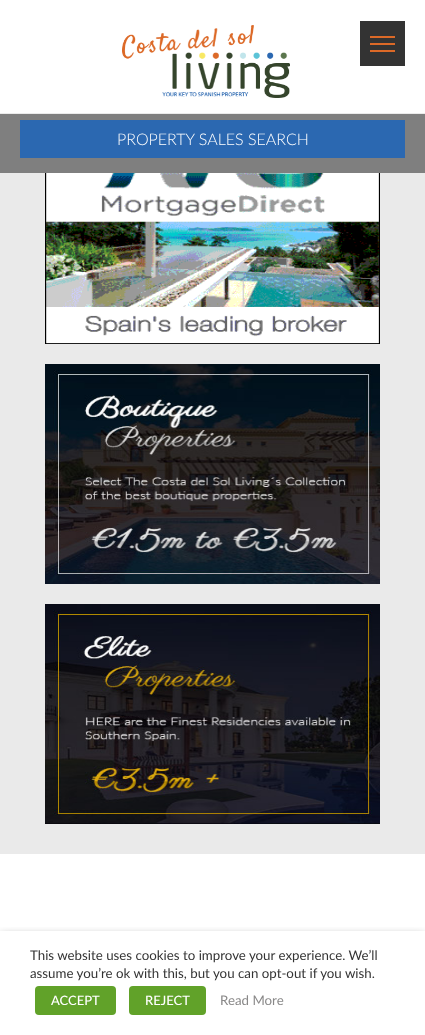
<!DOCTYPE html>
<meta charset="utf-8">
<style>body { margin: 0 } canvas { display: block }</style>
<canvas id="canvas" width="425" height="1035"></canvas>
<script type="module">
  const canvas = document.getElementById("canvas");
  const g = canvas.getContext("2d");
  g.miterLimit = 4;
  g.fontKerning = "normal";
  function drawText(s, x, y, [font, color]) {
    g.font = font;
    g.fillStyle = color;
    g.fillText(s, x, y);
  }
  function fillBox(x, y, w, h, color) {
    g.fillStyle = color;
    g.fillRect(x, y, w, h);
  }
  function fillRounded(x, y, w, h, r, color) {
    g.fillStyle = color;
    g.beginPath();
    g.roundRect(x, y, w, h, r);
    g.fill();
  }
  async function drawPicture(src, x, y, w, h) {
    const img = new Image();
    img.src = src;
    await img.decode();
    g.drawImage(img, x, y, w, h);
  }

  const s1 = ["300 16px Lato", "#FFFFFF"];
  const s2 = ["13.3px Lato", "#333333"];
  const s3 = ["500 13px Lato", "#FFFFFF"];
  const s4 = ["13.3px Lato", "#898888"];

  fillBox(0, 0, 425, 1035, "#FFFFFF");
  fillBox(0, 113, 425, 1, "#EBEBEB");
  await drawPicture("pic1.png", 122, 25, 168, 73);
  fillBox(360, 21, 45, 45, "#333333");
  fillBox(370, 36, 25, 2, "#DC6927");
  fillBox(370, 43, 25, 2, "#DC6927");
  fillBox(370, 50, 25, 2, "#DC6927");
  fillBox(0, 114, 425, 59, "#7F7F7F");
  fillBox(20, 120, 385, 38, "#2B68B1");
  drawText("PROPERTY SALES SEARCH", 117, 145, s1);
  fillBox(0, 173, 425, 681, "#EAEAEA");
  await drawPicture("pic2.png", 45, 173, 335, 171);
  await drawPicture("pic3.png", 45, 364, 335, 220);
  await drawPicture("pic4.png", 45, 604, 335, 220);
  fillBox(15, 993, 395, 32, "#EAEAEA");
  g.save();
  g.beginPath();
  g.rect(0, 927, 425, 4);
  g.clip();
  g.fillStyle = "rgba(0, 0, 0, 0.5)";
  g.filter = "blur(5px)";
  g.beginPath();
  g.rect(0, 936, 425, 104);
  g.fill();
  g.filter = "none";
  g.restore();
  fillBox(15, 993, 395, 32, "rgba(255, 255, 255, 0.97)");
  drawText("This website uses cookies to improve your experience. We’ll", 30, 960, s2);
  drawText("assume you’re ok with this, but you can opt-out if you wish.", 30, 978, s2);
  fillRounded(35, 986, 81, 29, 4, "#61A229");
  drawText("ACCEPT", 51, 1005, s3);
  fillRounded(129, 986, 77, 29, 4, "#61A229");
  drawText("REJECT", 145, 1005, s3);
  drawText("Read More", 220, 1005, s4);
</script>
